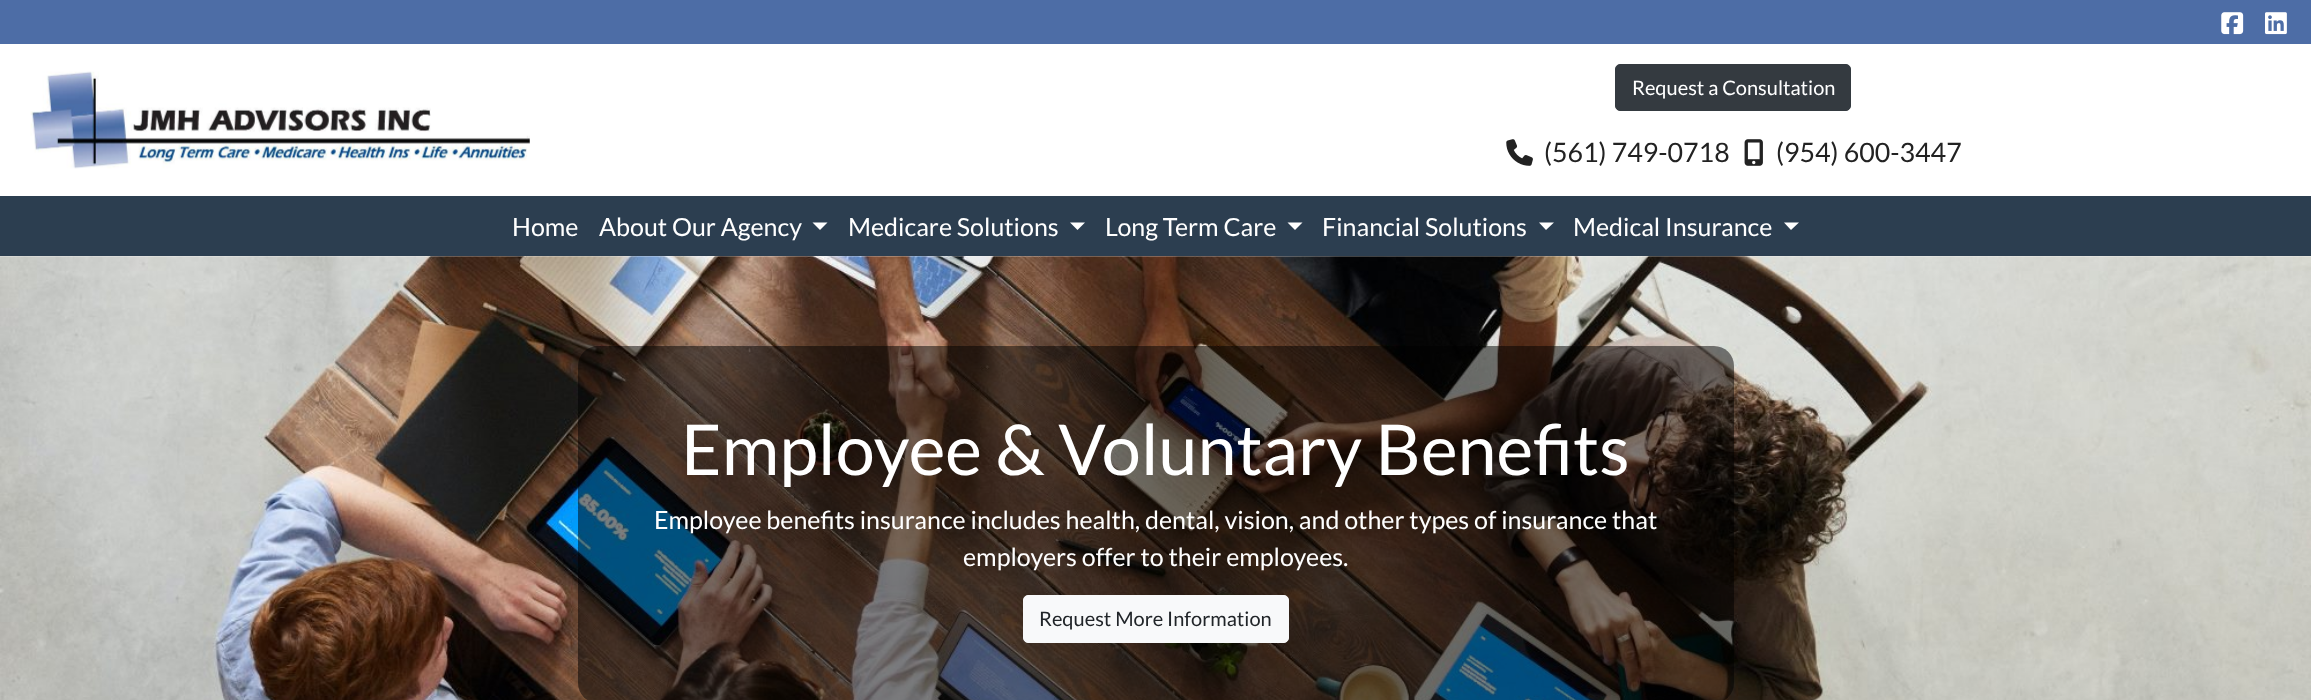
<!DOCTYPE html>
<meta charset="utf-8">
<style>body { margin: 0 } canvas { display: block }</style>
<canvas id="canvas" width="2311" height="700"></canvas>
<script type="module">
  const canvas = document.getElementById("canvas");
  const g = canvas.getContext("2d");
  g.miterLimit = 4;
  g.fontKerning = "normal";
  function drawText(s, x, y, [font, color]) {
    g.font = font;
    g.fillStyle = color;
    g.fillText(s, x, y);
  }
  function fillBox(x, y, w, h, color) {
    g.fillStyle = color;
    g.fillRect(x, y, w, h);
  }
  function fillRounded(x, y, w, h, r, color) {
    g.fillStyle = color;
    g.beginPath();
    g.roundRect(x, y, w, h, r);
    g.fill();
  }
  async function drawPicture(src, x, y, w, h) {
    const img = new Image();
    img.src = src;
    await img.decode();
    g.drawImage(img, x, y, w, h);
  }

  const s1 = ["20px Lato", "#FFFFFF"];
  const s2 = ["26.75px Lato", "#222222"];
  const s3 = ["25px Lato", "#FFFFFF"];
  const s4 = ["70px Lato", "#FFFFFF"];
  const s5 = ["20px Lato", "#212529"];

  fillBox(0, 0, 2311, 700, "#FFFFFF");
  fillBox(0, 0, 2311, 44, "#4D6DA6");
  await drawPicture("pic1.png", 2221, 12, 23, 23);
  await drawPicture("pic2.png", 2265, 12, 22, 23);
  await drawPicture("pic3.png", 30, 71, 500, 98);
  g.fillStyle = "#343A40";
  g.beginPath();
  g.roundRect(1615.5, 64.5, 235, 46, 4.5);
  g.fill();
  g.strokeStyle = "#343A40";
  g.stroke();
  drawText("Request a Consultation", 1632, 95, s1);
  await drawPicture("pic4.png", 1506, 139, 27, 27);
  drawText("(561) 749-0718", 1544, 162, s2);
  await drawPicture("pic5.png", 1744, 139, 19, 27);
  drawText("(954) 600-3447", 1776, 162, s2);
  fillBox(0, 196, 2311, 60, "#2C3E50");
  drawText("Home", 512, 236, s3);
  drawText("About Our Agency", 599, 236, s3);
  g.beginPath();
  g.moveTo(812.5, 222.5);
  g.lineTo(827.5, 222.5);
  g.lineTo(820, 230);
  g.closePath();
  g.fill();
  drawText("Medicare Solutions", 848, 236, s3);
  g.beginPath();
  g.moveTo(1070, 222.5);
  g.lineTo(1085, 222.5);
  g.lineTo(1077.5, 230);
  g.closePath();
  g.fill();
  drawText("Long Term Care", 1105, 236, s3);
  g.beginPath();
  g.moveTo(1287.5, 222.5);
  g.lineTo(1302.5, 222.5);
  g.lineTo(1295, 230);
  g.closePath();
  g.fill();
  drawText("Financial Solutions", 1322, 236, s3);
  g.beginPath();
  g.moveTo(1539, 222.5);
  g.lineTo(1554, 222.5);
  g.lineTo(1546, 230);
  g.closePath();
  g.fill();
  drawText("Medical Insurance", 1573, 236, s3);
  g.beginPath();
  g.moveTo(1784, 222.5);
  g.lineTo(1799, 222.5);
  g.lineTo(1791, 230);
  g.closePath();
  g.fill();
  await drawPicture("pic6.png", 0, 256, 2311, 444);
  fillRounded(578, 346, 1156, 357, 20, "rgba(0, 0, 0, 0.5)");
  drawText("Employee & Voluntary Benefits", 681, 475, s4);
  drawText("Employee benefits insurance includes health, dental, vision, and other types of insurance that", 654, 529, s3);
  drawText("employers offer to their employees.", 963, 566, s3);
  g.fillStyle = "#F8F9FA";
  g.beginPath();
  g.roundRect(1023.5, 595.5, 265, 47, 4.5);
  g.fill();
  g.strokeStyle = "#F8F9FA";
  g.stroke();
  drawText("Request More Information", 1039, 626, s5);
</script>
